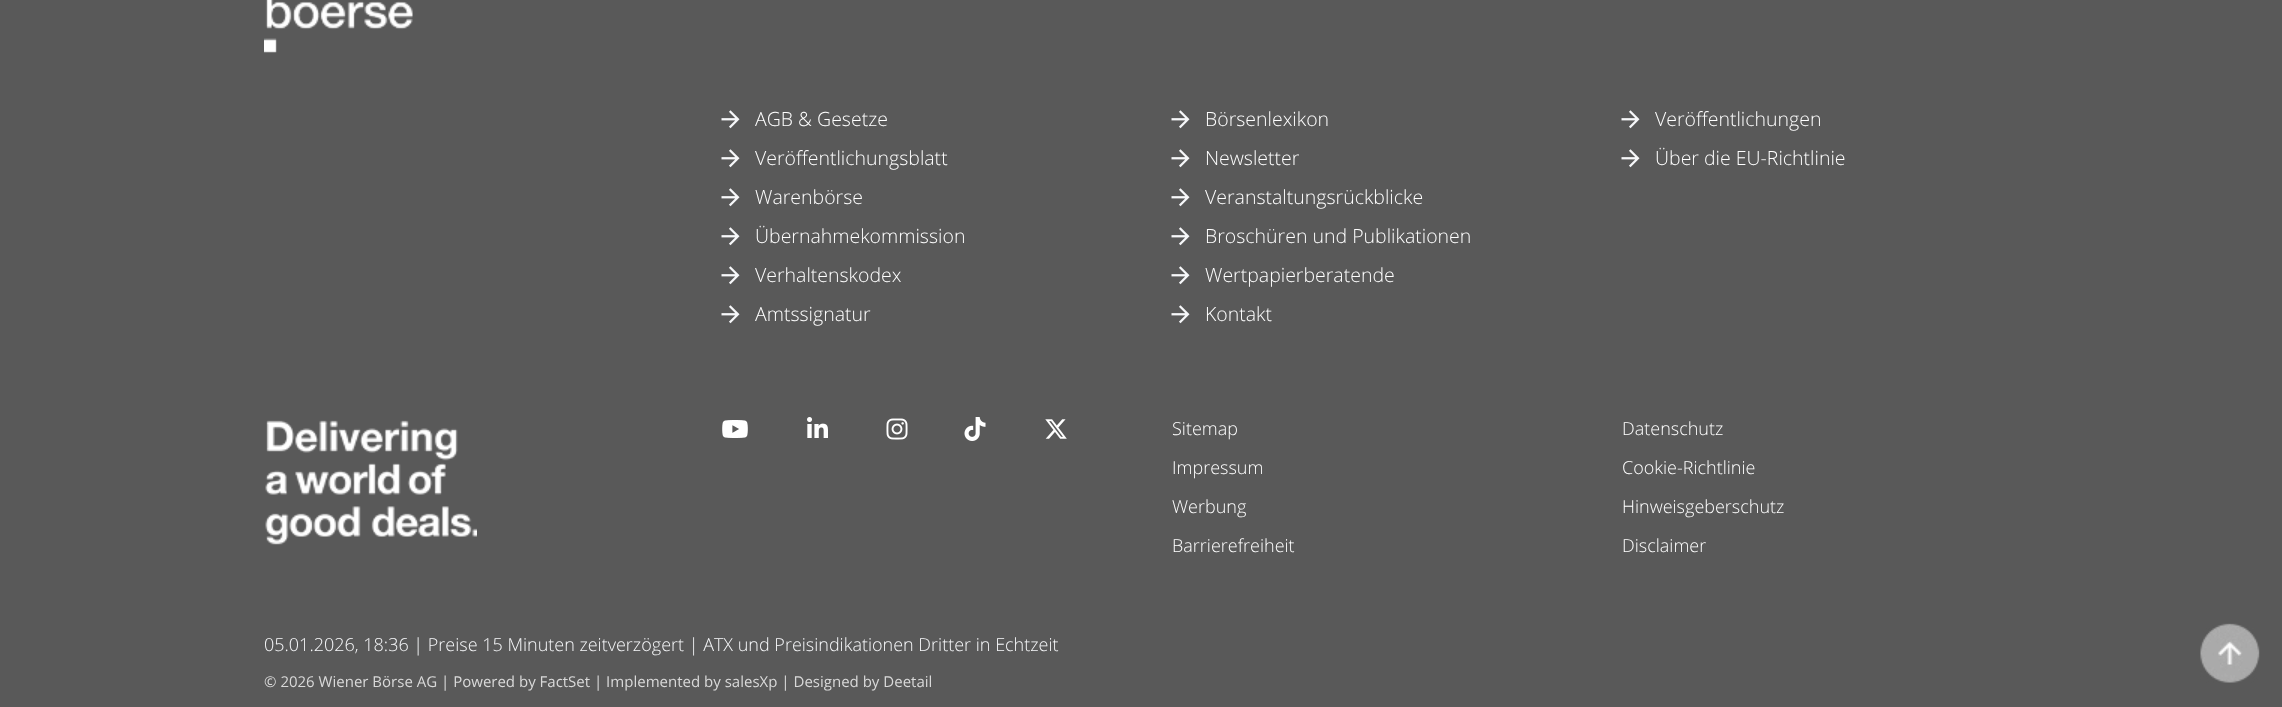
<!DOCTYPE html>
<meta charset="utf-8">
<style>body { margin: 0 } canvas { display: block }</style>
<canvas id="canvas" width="2282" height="707"></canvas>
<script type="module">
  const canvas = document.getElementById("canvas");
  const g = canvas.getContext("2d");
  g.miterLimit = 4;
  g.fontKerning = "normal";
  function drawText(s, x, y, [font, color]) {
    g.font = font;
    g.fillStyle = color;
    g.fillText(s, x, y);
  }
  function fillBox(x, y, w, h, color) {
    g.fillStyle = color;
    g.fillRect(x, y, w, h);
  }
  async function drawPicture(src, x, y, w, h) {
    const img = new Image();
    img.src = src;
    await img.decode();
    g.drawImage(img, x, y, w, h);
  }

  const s1 = ["300 19.5px Open Sans", "#FFFFFF"];
  const s2 = ["300 18px Open Sans", "#FFFFFF"];
  const s3 = ["300 18px Open Sans", "#F7F8FA"];
  const s4 = ["15px Open Sans", "#D9D9D9"];

  fillBox(0, 0, 2282, 707, "#595959");
  await drawPicture("pic1.png", 264, 0, 149, 53);
  await drawPicture("pic2.png", 721, 110, 19, 19);
  drawText("AGB & Gesetze", 755, 126, s1);
  await drawPicture("pic2.png", 721, 149, 19, 19);
  drawText("Veröffentlichungsblatt", 755, 165, s1);
  await drawPicture("pic2.png", 721, 188, 19, 19);
  drawText("Warenbörse", 755, 204, s1);
  await drawPicture("pic2.png", 721, 227, 19, 19);
  drawText("Übernahmekommission", 755, 243, s1);
  await drawPicture("pic2.png", 721, 266, 19, 19);
  drawText("Verhaltenskodex", 755, 282, s1);
  await drawPicture("pic2.png", 721, 305, 19, 19);
  drawText("Amtssignatur", 755, 321, s1);
  await drawPicture("pic2.png", 1171, 110, 19, 19);
  drawText("Börsenlexikon", 1205, 126, s1);
  await drawPicture("pic2.png", 1171, 149, 19, 19);
  drawText("Newsletter", 1205, 165, s1);
  await drawPicture("pic2.png", 1171, 188, 19, 19);
  drawText("Veranstaltungsrückblicke", 1205, 204, s1);
  await drawPicture("pic2.png", 1171, 227, 19, 19);
  drawText("Broschüren und Publikationen", 1205, 243, s1);
  await drawPicture("pic2.png", 1171, 266, 19, 19);
  drawText("Wertpapierberatende", 1205, 282, s1);
  await drawPicture("pic2.png", 1171, 305, 19, 19);
  drawText("Kontakt", 1205, 321, s1);
  await drawPicture("pic2.png", 1621, 110, 19, 19);
  drawText("Veröffentlichungen", 1655, 126, s1);
  await drawPicture("pic2.png", 1621, 149, 19, 19);
  drawText("Über die EU-Richtlinie", 1655, 165, s1);
  await drawPicture("pic3.png", 2200, 623, 60, 60);
  await drawPicture("pic4.png", 265, 420, 212, 125);
  await drawPicture("pic5.png", 722, 420, 26, 18);
  await drawPicture("pic6.png", 807, 417, 21, 21);
  await drawPicture("pic7.png", 886, 418, 22, 22);
  await drawPicture("pic8.png", 964, 417, 22, 24);
  await drawPicture("pic9.png", 1045, 419, 22, 20);
  drawText("Sitemap", 1172, 435, s2);
  drawText("Impressum", 1172, 474, s2);
  drawText("Werbung", 1172, 513, s2);
  drawText("Barrierefreiheit", 1172, 552, s2);
  drawText("Datenschutz", 1622, 435, s2);
  drawText("Cookie-Richtlinie", 1622, 474, s2);
  drawText("Hinweisgeberschutz", 1622, 513, s2);
  drawText("Disclaimer", 1622, 552, s2);
  drawText("05.01.2026, 18:36 | Preise 15 Minuten zeitverzögert | ATX und Preisindikationen Dritter in Echtzeit", 264, 651, s3);
  drawText("© 2026 Wiener Börse AG | Powered by FactSet | Implemented by salesXp | Designed by Deetail", 264, 687, s4);
</script>
